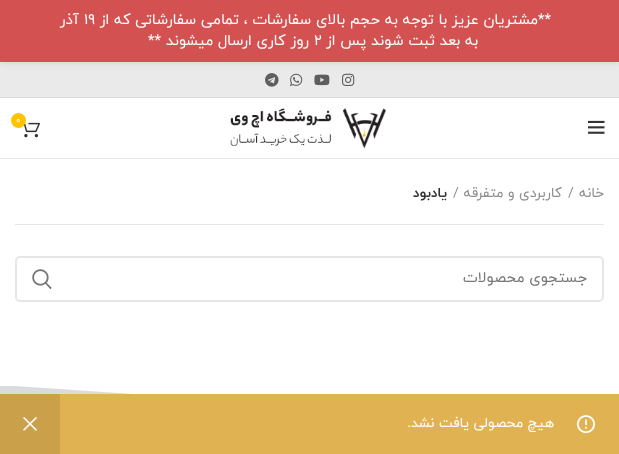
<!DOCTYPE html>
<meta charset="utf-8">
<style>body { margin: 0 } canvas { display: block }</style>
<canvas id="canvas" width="619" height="454"></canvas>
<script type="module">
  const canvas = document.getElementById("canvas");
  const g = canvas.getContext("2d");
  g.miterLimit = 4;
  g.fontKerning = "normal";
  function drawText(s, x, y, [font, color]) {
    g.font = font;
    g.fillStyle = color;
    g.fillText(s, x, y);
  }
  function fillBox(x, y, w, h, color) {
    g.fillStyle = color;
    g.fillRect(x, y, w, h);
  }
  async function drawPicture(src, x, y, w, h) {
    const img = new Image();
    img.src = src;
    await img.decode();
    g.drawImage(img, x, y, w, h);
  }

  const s1 = ["15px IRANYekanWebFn", "#FFFFFF"];
  const s2 = ["9px IRANYekanWebFn", "#FFFFFF"];
  const s3 = ["14px IRANYekanWebFn", "#8E8E8E"];
  const s4 = ["bold 14px IRANYekanWebFn", "#333333"];
  const s5 = ["15px IRANYekanWebFn", "#777777"];
  const s6 = ["14px IRANYekanWebFn", "#FFFFFF"];

  fillBox(0, 0, 619, 454, "#FFFFFF");
  fillBox(0, 62, 619, 35, "#EAEAEA");
  g.fillStyle = "rgba(0, 0, 0, 0.05)";
  g.filter = "blur(2px)";
  g.beginPath();
  g.rect(0, 3, 619, 62);
  g.fill();
  g.filter = "none";
  fillBox(0, 0, 619, 62, "#D35151");
  g.direction = "rtl";
  drawText("**مشتریان عزیز با توجه به حجم بالای سفارشات ، تمامی سفارشاتی که از", 551, 24, s1);
  g.direction = "ltr";
  drawText("19", 84, 24, s1);
  g.direction = "rtl";
  drawText("آذر", 79, 24, s1);
  drawText("به بعد ثبت شوند پس از", 478, 45, s1);
  g.direction = "ltr";
  drawText("2", 314, 45, s1);
  g.direction = "rtl";
  drawText("روز کاری ارسال میشوند **", 309, 45, s1);
  fillBox(0, 97, 619, 1, "#D9D9D9");
  await drawPicture("pic1.png", 342, 73, 13, 13);
  await drawPicture("pic2.png", 314, 74, 16, 12);
  await drawPicture("pic3.png", 290, 73, 13, 13);
  await drawPicture("pic4.png", 265, 73, 14, 14);
  fillBox(0, 158, 619, 1, "#E6E6E6");
  await drawPicture("pic5.png", 588, 120, 17, 14);
  await drawPicture("pic6.png", 230, 108, 156, 41);
  await drawPicture("pic7.png", 24, 122, 16, 16);
  g.fillStyle = "#FFC400";
  g.beginPath();
  g.arc(18.5, 120.5, 7.5, 0, Math.PI * 2);
  g.fill();
  g.direction = "ltr";
  drawText("0", 16, 123, s2);
  fillBox(15, 224, 589, 1, "#E6E6E6");
  g.direction = "rtl";
  drawText("خانه", 604, 197, s3);
  g.direction = "ltr";
  drawText("/", 568, 197, s3);
  g.direction = "rtl";
  drawText("کاربردی و متفرقه", 562, 197, s3);
  g.direction = "ltr";
  drawText("/", 453, 197, s3);
  g.direction = "rtl";
  drawText("یادبود", 447, 197, s4);
  g.beginPath();
  g.roundRect(16, 257, 587, 44, 4);
  g.strokeStyle = "#E6E6E6";
  g.lineWidth = 2;
  g.stroke();
  drawText("جستجوی محصولات", 587, 282, s5);
  await drawPicture("pic8.png", 32, 269, 20, 21);
  fillBox(0, 386, 133, 8, "#CFCFCF");
  g.fillStyle = "#FFFFFF";
  g.beginPath();
  g.moveTo(0, 385);
  g.lineTo(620, 385);
  g.lineTo(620, 427);
  g.closePath();
  g.fill();
  g.fillStyle = "rgba(255, 255, 255, 0.25)";
  g.beginPath();
  g.moveTo(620, 385);
  g.lineTo(0, 385);
  g.lineTo(0, 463);
  g.lineTo(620, 427);
  g.closePath();
  g.fill();
  fillBox(60, 394, 559, 60, "#E0B252");
  await drawPicture("pic9.png", 577, 415, 18, 19);
  drawText("هیچ محصولی یافت نشد.", 554, 427, s6);
  fillBox(0, 394, 60, 60, "#CAA04A");
  await drawPicture("pic10.png", 23, 417, 14, 14);
</script>
